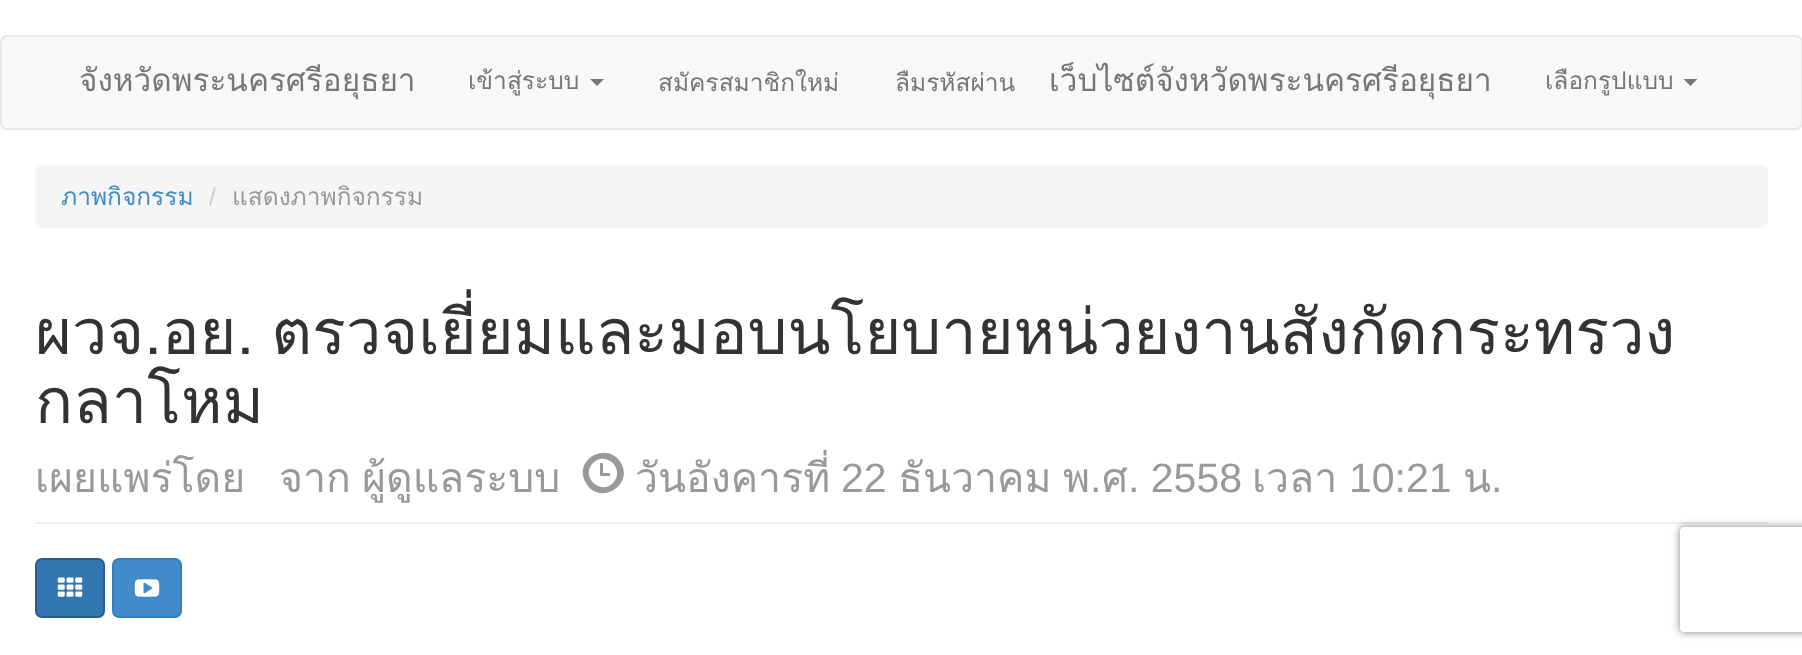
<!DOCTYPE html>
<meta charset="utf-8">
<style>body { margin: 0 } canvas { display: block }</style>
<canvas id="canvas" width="1802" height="655"></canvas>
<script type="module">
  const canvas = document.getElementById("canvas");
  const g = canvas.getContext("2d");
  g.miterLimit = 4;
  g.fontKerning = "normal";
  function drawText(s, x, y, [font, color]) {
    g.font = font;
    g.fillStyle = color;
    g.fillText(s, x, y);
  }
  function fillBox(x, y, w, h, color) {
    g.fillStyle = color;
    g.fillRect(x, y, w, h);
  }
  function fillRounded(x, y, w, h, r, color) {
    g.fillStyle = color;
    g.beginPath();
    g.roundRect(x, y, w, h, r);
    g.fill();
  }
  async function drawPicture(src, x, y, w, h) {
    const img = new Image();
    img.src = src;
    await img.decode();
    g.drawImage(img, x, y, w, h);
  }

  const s1 = ["31.5px Loma", "#777777"];
  const s2 = ["24.5px Loma", "#777777"];
  const s3 = ["24.5px Loma", "#428BCA"];
  const s4 = ["24.5px Liberation Sans", "#CCCCCC"];
  const s5 = ["24.5px Loma", "#999999"];
  const s6 = ["63px Loma", "#333333"];
  const s7 = ["41px Loma", "#999999"];
  const s8 = ["41px Liberation Sans", "#999999"];

  fillBox(0, 0, 1802, 655, "#FFFFFF");
  g.fillStyle = "#F8F8F8";
  g.beginPath();
  g.roundRect(1, 36, 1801, 93, 6);
  g.fill();
  g.strokeStyle = "#E7E7E7";
  g.lineWidth = 2;
  g.stroke();
  drawText("จังหวัดพระนครศรีอยุธยา", 79, 91, s1);
  drawText("เข้าสู่ระบบ", 468, 89, s2);
  g.beginPath();
  g.moveTo(590, 79);
  g.lineTo(604, 79);
  g.lineTo(597, 86);
  g.closePath();
  g.fill();
  drawText("สมัครสมาชิกใหม่", 658, 91, s2);
  drawText("ลืมรหัสผ่าน", 895, 91, s2);
  drawText("เว็บไซต์จังหวัดพระนครศรีอยุธยา", 1049, 91, s1);
  drawText("เลือกรูปแบบ", 1545, 89, s2);
  g.beginPath();
  g.moveTo(1683.5, 79);
  g.lineTo(1697.5, 79);
  g.lineTo(1690.5, 86);
  g.closePath();
  g.fill();
  fillRounded(35, 165, 1733, 63, 7, "#F5F5F5");
  drawText("ภาพกิจกรรม", 61, 205, s3);
  drawText("/", 209, 205, s4);
  drawText("แสดงภาพกิจกรรม", 232, 205, s5);
  fillBox(35, 522, 1733, 2, "#EEEEEE");
  g.wordSpacing = "-4px";
  drawText("ผวจ.อย. ตรวจเยี่ยมและมอบนโยบายหน่วยงานสังกัดกระทรวง", 35, 354, s6);
  g.wordSpacing = "0px";
  drawText("กลาโหม", 35, 423, s6);
  drawText("เผยแพร่โดย", 35, 492, s7);
  drawText("จาก", 279, 492, s7);
  drawText("ผู้ดูแลระบบ", 362, 492, s7);
  g.beginPath();
  g.moveTo(586, 483);
  g.bezierCurveTo(572, 460, 607, 440, 621, 463);
  g.bezierCurveTo(634, 486, 599, 506, 586, 483);
  g.closePath();
  g.moveTo(593, 463);
  g.bezierCurveTo(580, 476, 600, 496, 613, 483);
  g.bezierCurveTo(626, 470, 606, 450, 593, 463);
  g.closePath();
  g.moveTo(600, 476);
  g.lineTo(600, 463);
  g.lineTo(603, 463);
  g.lineTo(603, 473);
  g.lineTo(610, 473);
  g.lineTo(610, 476);
  g.closePath();
  g.fill();
  drawText("วันอังคารที่", 635, 492, s7);
  drawText("22", 841, 492, s8);
  drawText("ธันวาคม", 898, 492, s7);
  drawText("พ", 1063, 492, s7);
  drawText(".", 1090, 492, s8);
  drawText("ศ", 1102, 492, s7);
  drawText(". 2558", 1128, 492, s8);
  drawText("เวลา", 1252, 492, s7);
  drawText("10:21", 1349, 492, s8);
  drawText("น", 1463, 492, s7);
  drawText(".", 1491, 492, s8);
  g.fillStyle = "#3276B1";
  g.beginPath();
  g.roundRect(36, 559, 68, 58, 6);
  g.fill();
  g.strokeStyle = "#285E8E";
  g.stroke();
  await drawPicture("pic1.png", 57, 577, 26, 20);
  g.fillStyle = "#428BCA";
  g.beginPath();
  g.roundRect(113, 559, 68, 58, 6);
  g.fill();
  g.strokeStyle = "#357EBD";
  g.stroke();
  await drawPicture("pic2.png", 134, 579, 26, 18);
  g.save();
  g.beginPath();
  g.moveTo(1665, 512);
  g.lineTo(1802, 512);
  g.lineTo(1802, 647);
  g.lineTo(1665, 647);
  g.closePath();
  g.moveTo(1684, 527);
  g.lineTo(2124, 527);
  g.bezierCurveTo(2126, 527, 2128, 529, 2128, 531);
  g.lineTo(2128, 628);
  g.bezierCurveTo(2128, 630, 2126, 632, 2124, 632);
  g.lineTo(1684, 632);
  g.bezierCurveTo(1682, 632, 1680, 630, 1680, 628);
  g.lineTo(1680, 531);
  g.bezierCurveTo(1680, 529, 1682, 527, 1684, 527);
  g.closePath();
  g.clip("evenodd");
  g.fillStyle = "#808080";
  g.filter = "blur(4.5px)";
  g.beginPath();
  g.roundRect(1680, 527, 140, 105, 4);
  g.fill();
  g.filter = "none";
  g.restore();
</script>
